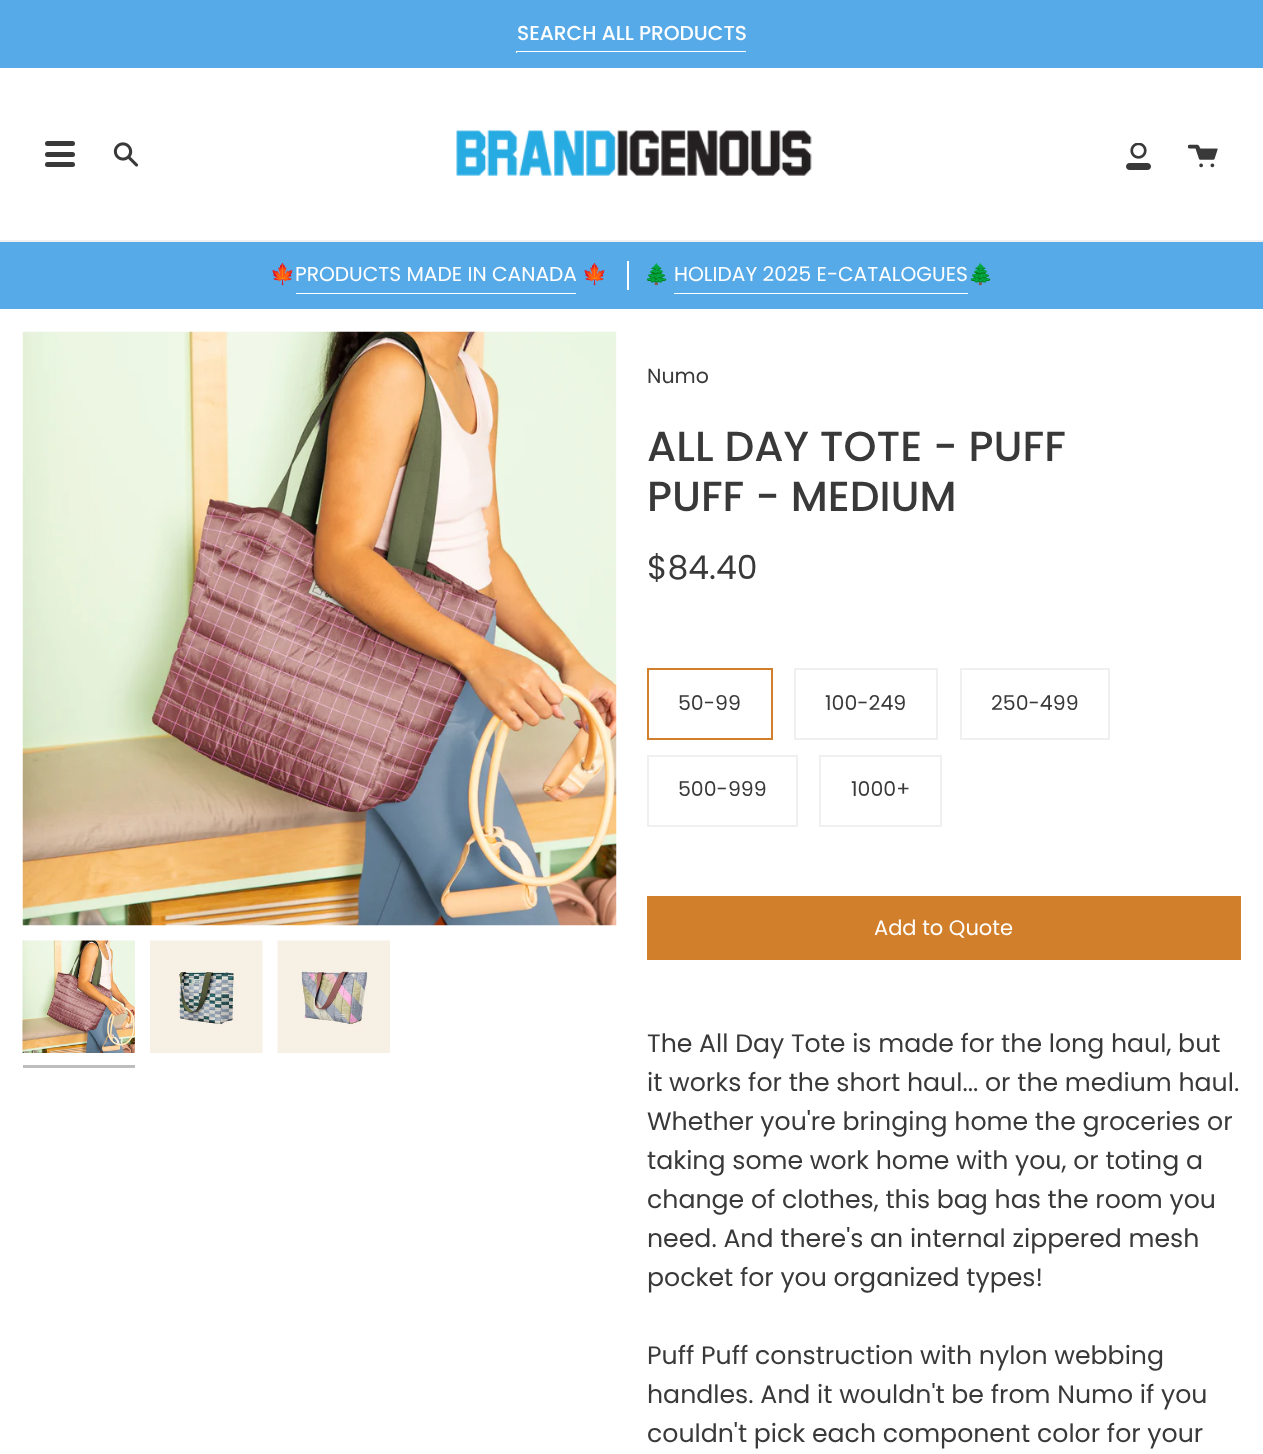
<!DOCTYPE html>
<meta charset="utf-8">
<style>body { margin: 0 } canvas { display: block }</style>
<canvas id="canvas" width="1263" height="1454"></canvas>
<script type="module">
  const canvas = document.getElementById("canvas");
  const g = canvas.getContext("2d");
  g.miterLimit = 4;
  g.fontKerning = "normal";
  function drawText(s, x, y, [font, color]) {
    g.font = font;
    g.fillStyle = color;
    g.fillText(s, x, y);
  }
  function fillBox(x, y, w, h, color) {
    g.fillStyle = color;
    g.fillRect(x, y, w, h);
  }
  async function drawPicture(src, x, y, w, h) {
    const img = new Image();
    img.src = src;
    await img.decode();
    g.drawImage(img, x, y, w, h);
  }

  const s1 = ["500 20.2px Poppins", "#FFFFFF"];
  const s2 = ["20.2px Noto Color Emoji", "#FFFFFF"];
  const s3 = ["20.2px Poppins", "#FFFFFF"];
  const s4 = ["20.5px Poppins", "#39393A"];
  const s5 = ["500 42px Poppins", "#39393A"];
  const s6 = ["33px Poppins", "#39393A"];
  const s7 = ["21px Poppins", "#FFFFFF"];
  const s8 = ["25.2px Poppins", "#39393A"];

  fillBox(0, 0, 1263, 1454, "#FFFFFF");
  fillBox(0, 0, 1263, 68, "#57AAE8");
  drawText("SEARCH ALL PRODUCTS", 517, 40, s1);
  g.beginPath();
  g.moveTo(516, 51);
  g.lineTo(516, 53);
  g.lineTo(517, 53);
  g.lineTo(517, 52);
  g.lineTo(746, 52);
  g.lineTo(746, 51);
  g.closePath();
  g.fill();
  fillBox(0, 240, 1263, 2, "#F0F0F0");
  g.fillStyle = "#39393A";
  g.beginPath();
  g.roundRect(45, 141, 26, 5, [2.5, 0, 0, 2.5]);
  g.fill();
  g.beginPath();
  g.roundRect(50, 141, 25, 5, [0, 2.5, 2.5, 0]);
  g.fill();
  g.beginPath();
  g.roundRect(45, 152, 26, 5, [2.5, 0, 0, 2.5]);
  g.fill();
  g.beginPath();
  g.roundRect(50, 152, 25, 5, [0, 2.5, 2.5, 0]);
  g.fill();
  g.beginPath();
  g.roundRect(45, 162, 26, 5, [2.5, 0, 0, 2.5]);
  g.fill();
  g.beginPath();
  g.roundRect(50, 162, 25, 5, [0, 2.5, 2.5, 0]);
  g.fill();
  await drawPicture("pic1.png", 113, 142, 26, 25);
  await drawPicture("pic2.png", 456, 129, 356, 47);
  await drawPicture("pic3.png", 1126, 143, 25, 27);
  await drawPicture("pic4.png", 1188, 144, 30, 24);
  fillBox(0, 242, 1263, 67, "#57AAE8");
  drawText("🍁", 270, 281, s2);
  drawText("PRODUCTS MADE IN CANADA", 295, 281, s3);
  fillBox(296, 293, 280, 1, "#FFFFFF");
  drawText("🍁", 582, 281, s2);
  fillBox(627, 261, 2, 29, "#FFFFFF");
  drawText("🌲", 644, 281, s2);
  drawText("HOLIDAY 2025 E-CATALOGUES", 674, 281, s3);
  g.beginPath();
  g.moveTo(674, 293);
  g.lineTo(674, 294);
  g.lineTo(968, 294);
  g.lineTo(968, 295);
  g.lineTo(968, 293);
  g.closePath();
  g.fill();
  drawText("🌲", 968, 281, s2);
  await drawPicture("pic5.png", 22, 331, 595, 595);
  await drawPicture("pic6.png", 22, 940, 113, 113);
  fillBox(23, 1065, 112, 3, "#BDBDBD");
  await drawPicture("pic7.png", 150, 940, 113, 113);
  await drawPicture("pic8.png", 277, 940, 113, 113);
  drawText("Numo", 647, 383, s4);
  drawText("ALL DAY TOTE - PUFF", 647, 461, s5);
  drawText("PUFF - MEDIUM", 647, 511, s5);
  drawText("$84.40", 647, 579, s6);
  g.strokeStyle = "#D17F2B";
  g.lineWidth = 2;
  g.strokeRect(648, 669, 124, 70);
  drawText("50-99", 678, 710, s4);
  g.strokeStyle = "#F0F0F0";
  g.strokeRect(795, 669, 142, 70);
  drawText("100-249", 825, 710, s4);
  g.strokeRect(961, 669, 148, 70);
  drawText("250-499", 991, 710, s4);
  g.strokeRect(648, 756, 149, 70);
  drawText("500-999", 678, 796, s4);
  g.strokeRect(820, 756, 121, 70);
  drawText("1000+", 851, 796, s4);
  fillBox(647, 896, 594, 64, "#D17F2B");
  drawText("Add to Quote", 874, 935, s7);
  drawText("The All Day Tote is made for the long haul, but", 647, 1052, s8);
  drawText("it works for the short haul... or the medium haul.", 647, 1091, s8);
  drawText("Whether you're bringing home the groceries or", 647, 1130, s8);
  drawText("taking some work home with you, or toting a", 647, 1169, s8);
  drawText("change of clothes, this bag has the room you", 647, 1208, s8);
  drawText("need. And there's an internal zippered mesh", 647, 1247, s8);
  drawText("pocket for you organized types!", 647, 1286, s8);
  drawText("Puff Puff construction with nylon webbing", 647, 1364, s8);
  drawText("handles. And it wouldn't be from Numo if you", 647, 1403, s8);
  drawText("couldn't pick each component color for your", 647, 1442, s8);
</script>
